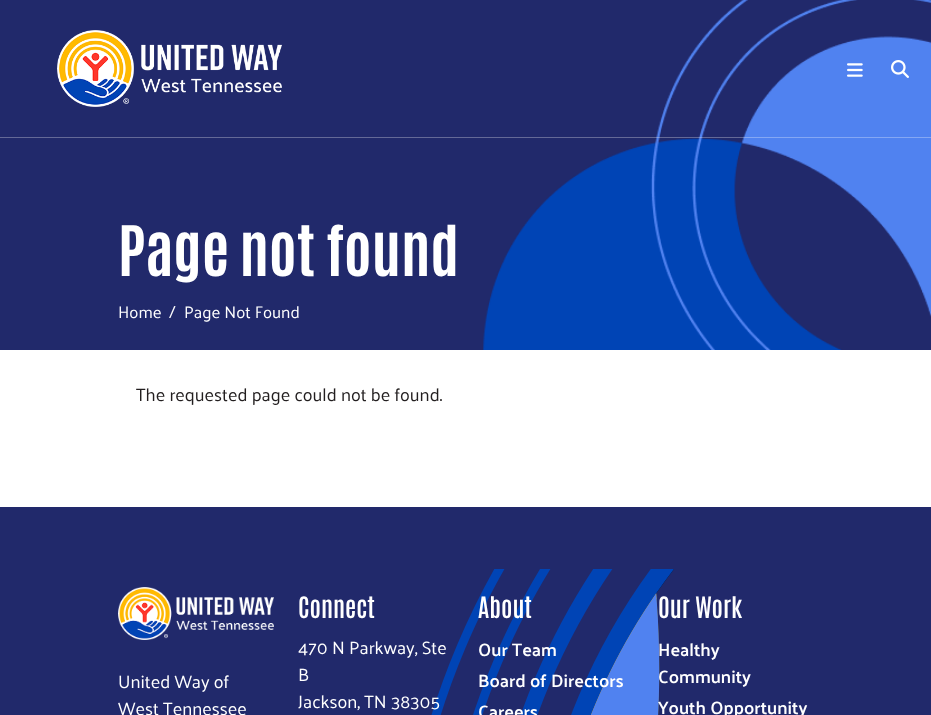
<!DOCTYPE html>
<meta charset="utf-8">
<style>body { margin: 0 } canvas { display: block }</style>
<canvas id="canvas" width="931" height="715"></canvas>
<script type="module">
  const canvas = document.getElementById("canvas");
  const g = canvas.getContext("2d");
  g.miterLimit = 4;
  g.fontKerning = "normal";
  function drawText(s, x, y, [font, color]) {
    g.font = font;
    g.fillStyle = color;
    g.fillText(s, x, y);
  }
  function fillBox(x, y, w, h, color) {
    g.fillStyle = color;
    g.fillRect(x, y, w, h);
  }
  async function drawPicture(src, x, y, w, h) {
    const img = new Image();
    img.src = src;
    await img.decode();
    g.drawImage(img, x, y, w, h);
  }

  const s1 = ["bold 59px Antonio", "#FFFFFF"];
  const s2 = ["16.75px Palanquin", "#FFFFFF"];
  const s3 = ["18px Palanquin", "#221E1F"];
  const s4 = ["18px Palanquin", "#FFFFFF"];
  const s5 = ["600 25px Antonio", "#FFFFFF"];
  const s6 = ["600 18px Palanquin", "#FFFFFF"];

  fillBox(0, 0, 931, 715, "#FFFFFF");
  fillBox(0, 0, 931, 350, "#21296B");
  await drawPicture("pic4.png", 483, 0, 448, 350);
  fillBox(0, 137, 931, 1, "rgba(255, 255, 255, 0.3)");
  await drawPicture("pic1.png", 57, 30, 225, 77);
  await drawPicture("pic2.png", 847, 63, 16, 14);
  await drawPicture("pic3.png", 891, 60, 18, 18);
  drawText("Page not found", 118, 276, s1);
  drawText("Home", 118, 318, s2);
  drawText("/", 169, 318, s2);
  drawText("Page Not Found", 184, 318, s2);
  drawText("The requested page could not be found.", 136, 401, s3);
  fillBox(0, 507, 931, 208, "#21296B");
  await drawPicture("pic5.png", 431, 569, 243, 146);
  await drawPicture("pic6.png", 118, 587, 156, 53);
  drawText("United Way of", 118, 688, s4);
  drawText("West Tennessee", 118, 715, s4);
  drawText("Connect", 298, 618, s5);
  drawText("470 N Parkway, Ste", 298, 654, s4);
  drawText("B", 298, 681, s4);
  drawText("Jackson, TN 38305", 298, 708, s4);
  drawText("About", 478, 618, s5);
  drawText("Our Team", 478, 656, s6);
  drawText("Board of Directors", 478, 687, s6);
  drawText("Careers", 478, 718, s6);
  drawText("Our Work", 658, 618, s5);
  drawText("Healthy", 658, 656, s6);
  drawText("Community", 658, 683, s6);
  drawText("Youth Opportunity", 658, 714, s6);
</script>
